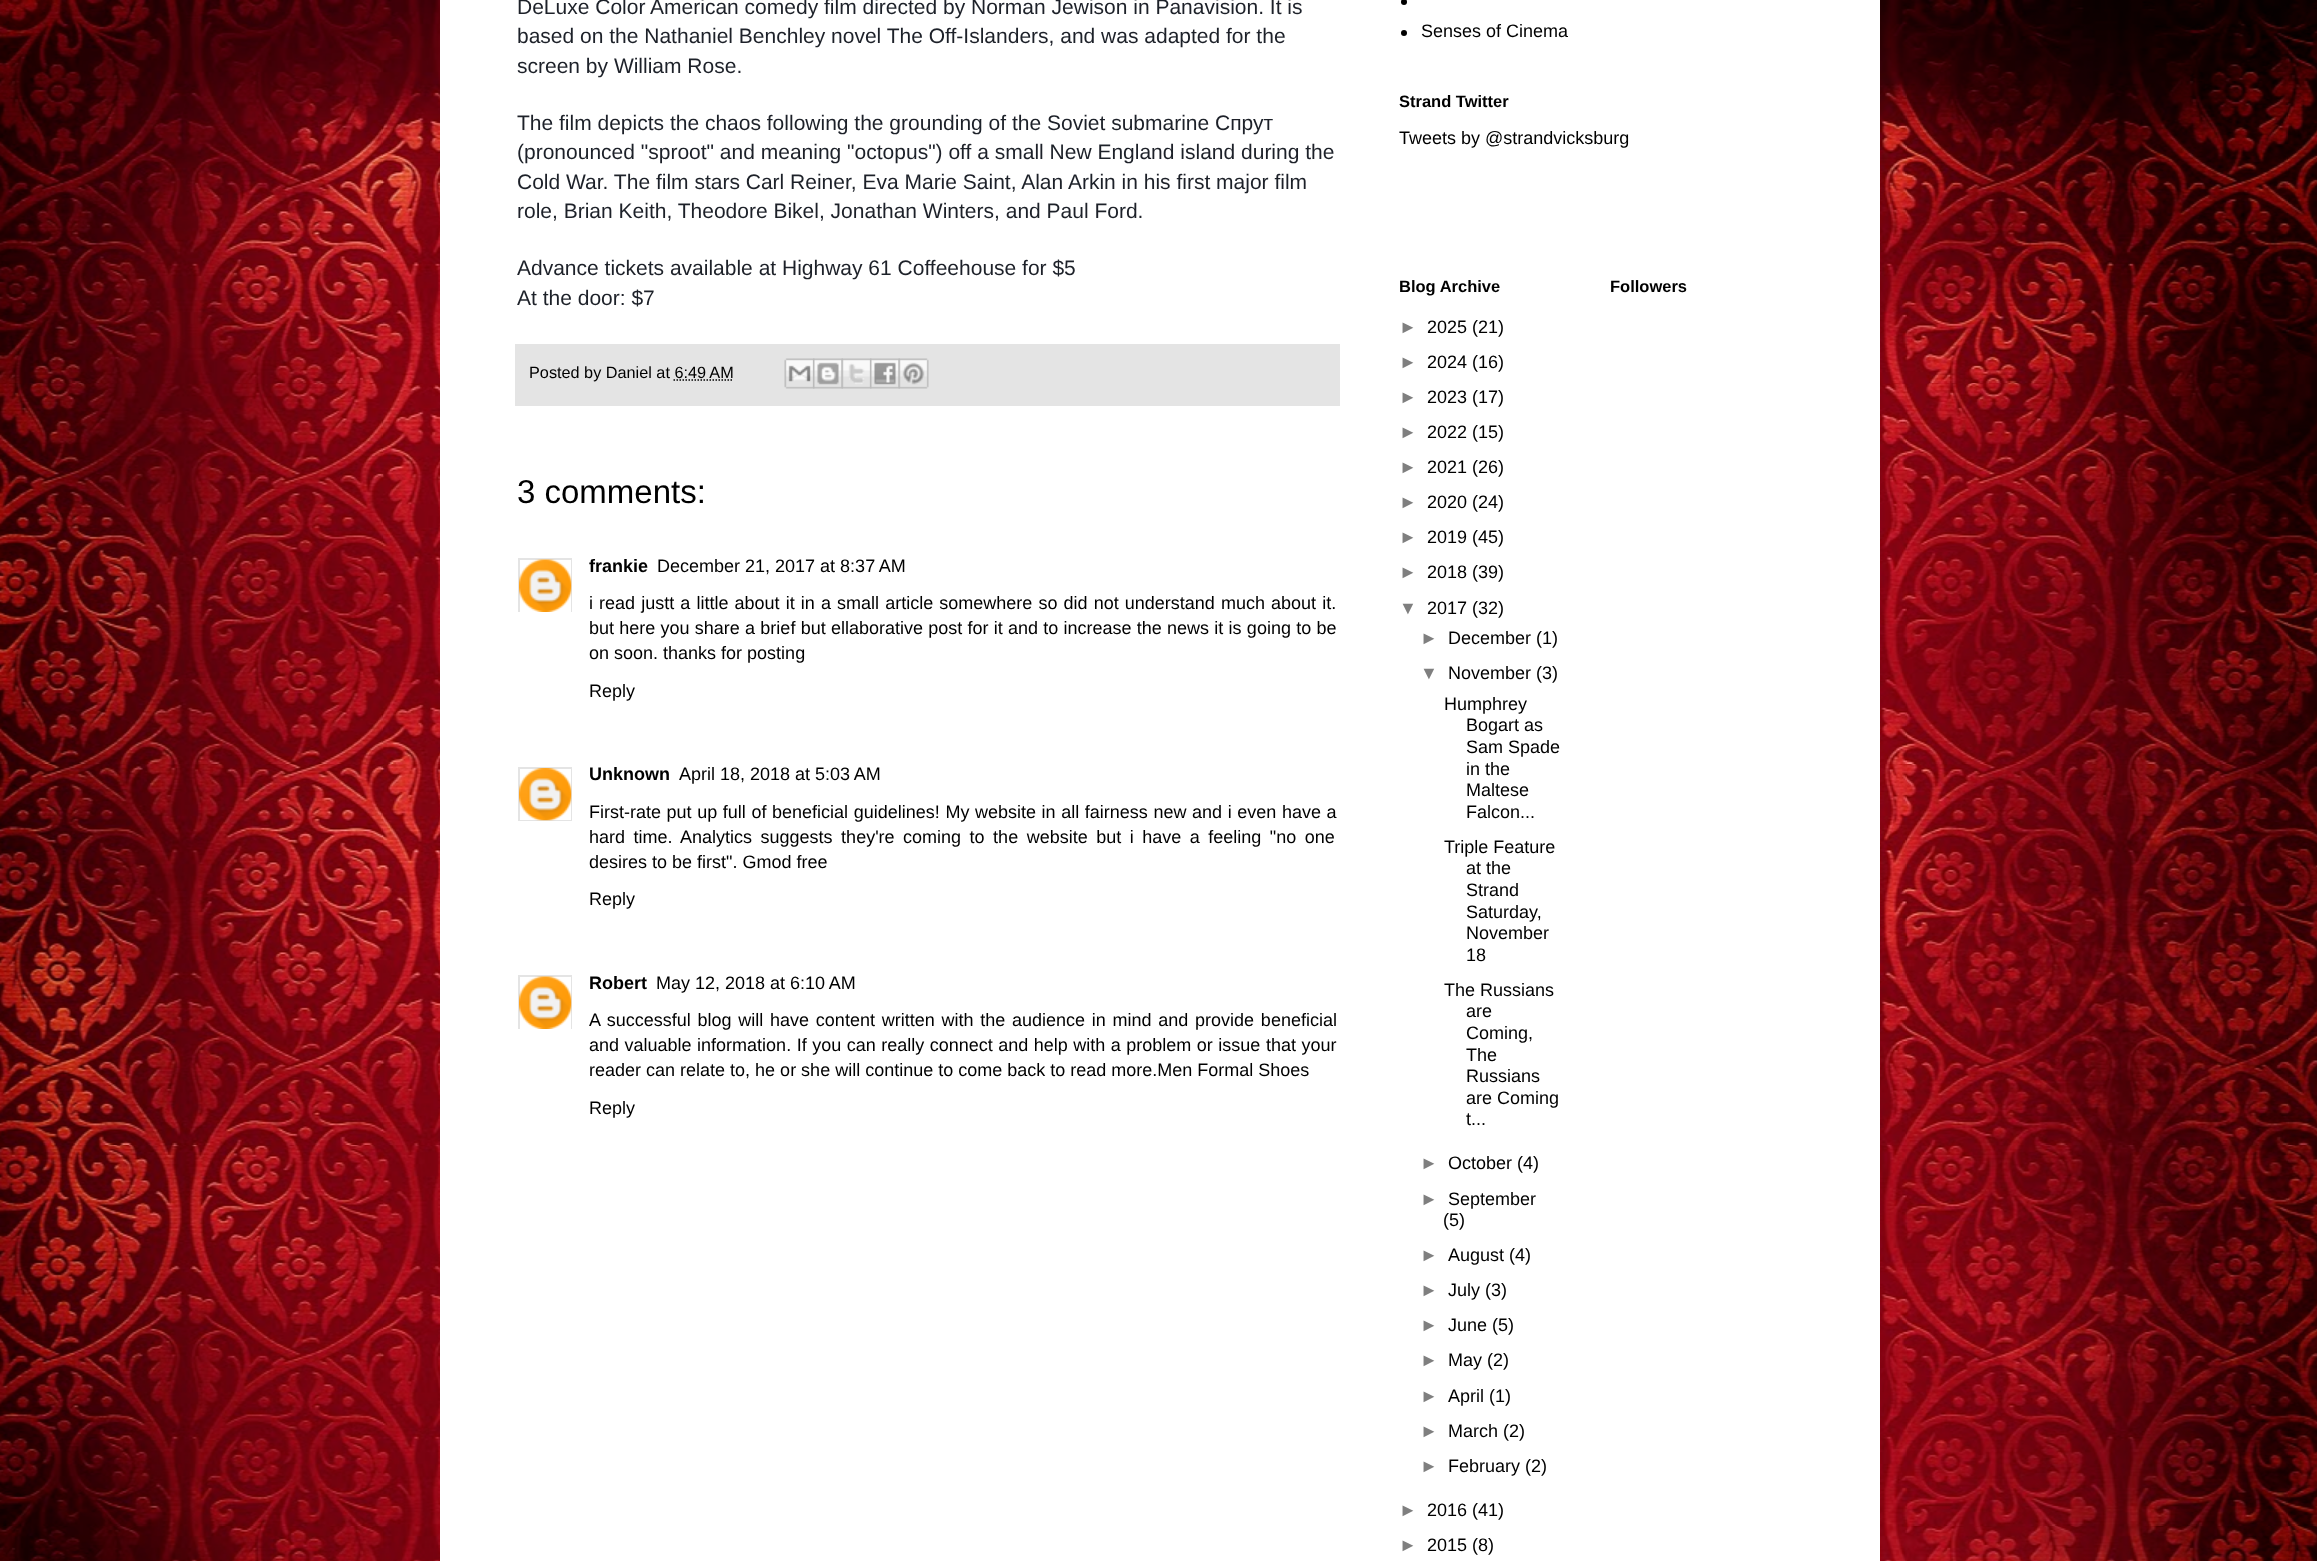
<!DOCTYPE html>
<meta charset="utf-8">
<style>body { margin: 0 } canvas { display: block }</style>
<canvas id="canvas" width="2317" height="1561"></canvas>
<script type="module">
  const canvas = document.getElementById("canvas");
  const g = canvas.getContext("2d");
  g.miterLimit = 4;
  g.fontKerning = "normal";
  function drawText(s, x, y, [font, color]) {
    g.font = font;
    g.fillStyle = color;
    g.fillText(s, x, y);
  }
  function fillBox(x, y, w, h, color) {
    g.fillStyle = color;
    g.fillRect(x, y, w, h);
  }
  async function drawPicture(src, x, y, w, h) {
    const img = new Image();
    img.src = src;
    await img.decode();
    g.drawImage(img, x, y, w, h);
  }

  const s1 = ["21px Liberation Sans", "#1D2129"];
  const s2 = ["16.25px Liberation Sans", "#000000"];
  const s3 = ["33px Liberation Sans", "#000000"];
  const s4 = ["bold 18px Liberation Sans", "#000000"];
  const s5 = ["18px Liberation Sans", "#000000"];
  const s6 = ["bold 16.5px Liberation Sans", "#000000"];
  const s7 = ["18px Liberation Sans", "#7F7F7F"];

  fillBox(0, 0, 2317, 1561, "#FFFFFF");
  await drawPicture("pic1.png", 0, 0, 2317, 1561);
  fillBox(440, 0, 1440, 1561, "#FFFFFF");
  drawText("DeLuxe Color American comedy film directed by Norman Jewison in Panavision. It is", 517, 14, s1);
  drawText("based on the Nathaniel Benchley novel The Off-Islanders, and was adapted for the", 517, 43, s1);
  drawText("screen by William Rose.", 517, 73, s1);
  drawText("The film depicts the chaos following the grounding of the Soviet submarine Спрут", 517, 130, s1);
  drawText("(pronounced \"sproot\" and meaning \"octopus\") off a small New England island during the", 517, 159, s1);
  drawText("Cold War. The film stars Carl Reiner, Eva Marie Saint, Alan Arkin in his first major film", 517, 189, s1);
  drawText("role, Brian Keith, Theodore Bikel, Jonathan Winters, and Paul Ford.", 517, 218, s1);
  drawText("Advance tickets available at Highway 61 Coffeehouse for $5", 517, 275, s1);
  drawText("At the door: $7", 517, 305, s1);
  fillBox(515, 344, 825, 62, "#E4E4E4");
  drawText("Posted by Daniel at 6:49 AM", 529, 378, s2);
  await drawPicture("pic2.png", 784, 358, 31, 31);
  await drawPicture("pic3.png", 813, 358, 30, 31);
  await drawPicture("pic4.png", 841, 358, 31, 31);
  await drawPicture("pic5.png", 870, 358, 30, 31);
  await drawPicture("pic6.png", 898, 358, 31, 31);
  g.beginPath();
  g.moveTo(673.5, 380);
  g.lineTo(733, 380);
  g.strokeStyle = "#000000";
  g.lineWidth = 1.5;
  g.setLineDash([1.5, 1.5]);
  g.stroke();
  drawText("3 comments:", 517, 503, s3);
  g.save();
  g.beginPath();
  g.rect(518, 558, 54, 54);
  g.clip();
  g.strokeStyle = "#E4E4E4";
  g.lineWidth = 2;
  g.setLineDash([]);
  g.strokeRect(519, 559, 53, 54);
  g.restore();
  await drawPicture("pic7.png", 519, 559, 53, 53);
  drawText("frankie", 589, 572, s4);
  drawText("December 21, 2017 at 8:37 AM", 657, 572, s5);
  g.wordSpacing = "1.1px";
  drawText("i read justt a little about it in a small article somewhere so did not understand much about it.", 589, 609, s5);
  g.wordSpacing = "0.25px";
  drawText("but here you share a brief but ellaborative post for it and to increase the news it is going to be", 589, 634, s5);
  g.wordSpacing = "0px";
  drawText("on soon. thanks for posting", 589, 659, s5);
  drawText("Reply", 589, 697, s5);
  g.save();
  g.beginPath();
  g.rect(518, 767, 54, 54);
  g.clip();
  g.strokeStyle = "#E4E4E4";
  g.lineWidth = 2;
  g.setLineDash([]);
  g.strokeRect(519, 768, 53, 53);
  g.restore();
  await drawPicture("pic8.png", 519, 768, 53, 53);
  drawText("Unknown", 589, 780, s4);
  drawText("April 18, 2018 at 5:03 AM", 679, 780, s5);
  g.wordSpacing = "0.6px";
  drawText("First-rate put up full of beneficial guidelines! My website in all fairness new and i even have a", 589, 818, s5);
  g.wordSpacing = "3.5px";
  drawText("hard time. Analytics suggests they're coming to the website but i have a feeling \"no one", 589, 843, s5);
  g.wordSpacing = "0px";
  drawText("desires to be first\". Gmod free", 589, 868, s5);
  drawText("Reply", 589, 905, s5);
  g.save();
  g.beginPath();
  g.rect(518, 975, 54, 54);
  g.clip();
  g.strokeStyle = "#E4E4E4";
  g.lineWidth = 2;
  g.setLineDash([]);
  g.strokeRect(519, 976, 53, 54);
  g.restore();
  await drawPicture("pic7.png", 519, 976, 53, 53);
  drawText("Robert", 589, 989, s4);
  drawText("May 12, 2018 at 6:10 AM", 656, 989, s5);
  g.wordSpacing = "1.75px";
  drawText("A successful blog will have content written with the audience in mind and provide beneficial", 589, 1026, s5);
  g.wordSpacing = "0.5px";
  drawText("and valuable information. If you can really connect and help with a problem or issue that your", 589, 1051, s5);
  g.wordSpacing = "0px";
  drawText("reader can relate to, he or she will continue to come back to read more.Men Formal Shoes", 589, 1076, s5);
  drawText("Reply", 589, 1114, s5);
  g.beginPath();
  g.arc(1404, 2, 3, 0, Math.PI * 2);
  g.fill();
  g.beginPath();
  g.arc(1404, 33, 3, 0, Math.PI * 2);
  g.fill();
  drawText("Senses of Cinema", 1421, 37, s5);
  drawText("Strand Twitter", 1399, 107, s6);
  drawText("Tweets by @strandvicksburg", 1399, 144, s5);
  drawText("Blog Archive", 1399, 292, s6);
  drawText("►", 1399, 333, s7);
  drawText("2025 (21)", 1427, 333, s5);
  drawText("►", 1399, 368, s7);
  drawText("2024 (16)", 1427, 368, s5);
  drawText("►", 1399, 403, s7);
  drawText("2023 (17)", 1427, 403, s5);
  drawText("►", 1399, 438, s7);
  drawText("2022 (15)", 1427, 438, s5);
  drawText("►", 1399, 473, s7);
  drawText("2021 (26)", 1427, 473, s5);
  drawText("►", 1399, 508, s7);
  drawText("2020 (24)", 1427, 508, s5);
  drawText("►", 1399, 543, s7);
  drawText("2019 (45)", 1427, 543, s5);
  drawText("►", 1399, 578, s7);
  drawText("2018 (39)", 1427, 578, s5);
  drawText("▼", 1399, 614, s7);
  drawText("2017 (32)", 1427, 614, s5);
  drawText("►", 1420, 644, s7);
  drawText("December (1)", 1448, 644, s5);
  drawText("▼", 1420, 679, s7);
  drawText("November (3)", 1448, 679, s5);
  drawText("Humphrey", 1444, 710, s5);
  drawText("Bogart as", 1466, 731, s5);
  drawText("Sam Spade", 1466, 753, s5);
  drawText("in the", 1466, 775, s5);
  drawText("Maltese", 1466, 796, s5);
  drawText("Falcon...", 1466, 818, s5);
  drawText("Triple Feature", 1444, 853, s5);
  drawText("at the", 1466, 874, s5);
  drawText("Strand", 1466, 896, s5);
  drawText("Saturday,", 1466, 918, s5);
  drawText("November", 1466, 939, s5);
  drawText("18", 1466, 961, s5);
  drawText("The Russians", 1444, 996, s5);
  drawText("are", 1466, 1017, s5);
  drawText("Coming,", 1466, 1039, s5);
  drawText("The", 1466, 1061, s5);
  drawText("Russians", 1466, 1082, s5);
  drawText("are Coming", 1466, 1104, s5);
  drawText("t...", 1466, 1125, s5);
  drawText("►", 1420, 1169, s7);
  drawText("October (4)", 1448, 1169, s5);
  drawText("►", 1420, 1205, s7);
  drawText("September", 1448, 1205, s5);
  drawText("(5)", 1443, 1226, s5);
  drawText("►", 1420, 1261, s7);
  drawText("August (4)", 1448, 1261, s5);
  drawText("►", 1420, 1296, s7);
  drawText("July (3)", 1448, 1296, s5);
  drawText("►", 1420, 1331, s7);
  drawText("June (5)", 1448, 1331, s5);
  drawText("►", 1420, 1366, s7);
  drawText("May (2)", 1448, 1366, s5);
  drawText("►", 1420, 1402, s7);
  drawText("April (1)", 1448, 1402, s5);
  drawText("►", 1420, 1437, s7);
  drawText("March (2)", 1448, 1437, s5);
  drawText("►", 1420, 1472, s7);
  drawText("February (2)", 1448, 1472, s5);
  drawText("►", 1399, 1516, s7);
  drawText("2016 (41)", 1427, 1516, s5);
  drawText("►", 1399, 1551, s7);
  drawText("2015 (8)", 1427, 1551, s5);
  drawText("Followers", 1610, 292, s6);
</script>
